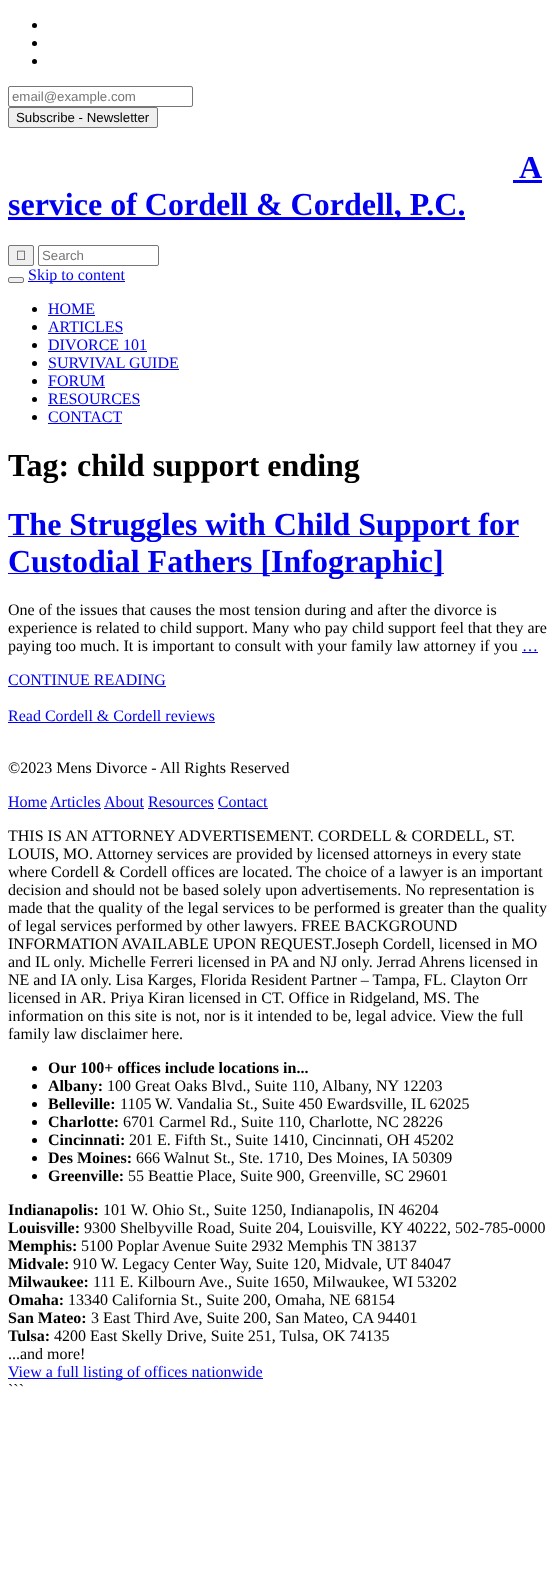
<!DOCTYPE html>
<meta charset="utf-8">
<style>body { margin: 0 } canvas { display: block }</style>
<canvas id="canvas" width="555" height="1591"></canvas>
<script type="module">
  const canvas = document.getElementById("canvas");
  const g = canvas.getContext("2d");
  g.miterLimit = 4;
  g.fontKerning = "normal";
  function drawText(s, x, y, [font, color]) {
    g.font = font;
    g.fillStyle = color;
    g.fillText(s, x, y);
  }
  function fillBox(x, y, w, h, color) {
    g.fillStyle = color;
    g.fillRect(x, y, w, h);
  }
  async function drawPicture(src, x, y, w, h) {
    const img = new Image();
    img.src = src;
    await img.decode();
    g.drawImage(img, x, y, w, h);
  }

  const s1 = ["13.25px Liberation Sans", "#757575"];
  const s2 = ["13.25px Liberation Sans", "#000000"];
  const s3 = ["bold 32px Liberation Serif", "#0000EE"];
  const s4 = ["16px Liberation Serif", "#0000EE"];
  const s5 = ["bold 32px Liberation Serif", "#000000"];
  const s6 = ["16px Liberation Serif", "#000000"];
  const s7 = ["bold 16px Liberation Serif", "#000000"];

  fillBox(0, 0, 555, 1591, "#FFFFFF");
  g.fillStyle = "#000000";
  g.beginPath();
  g.arc(34.5, 25.5, 2.5, 0, Math.PI * 2);
  g.fill();
  g.beginPath();
  g.arc(34.5, 43.5, 2.5, 0, Math.PI * 2);
  g.fill();
  g.beginPath();
  g.arc(34.5, 61.5, 2.5, 0, Math.PI * 2);
  g.fill();
  g.beginPath();
  g.roundRect(8.5, 86.5, 184, 20, 1.5);
  g.strokeStyle = "#767676";
  g.stroke();
  drawText("email@example.com", 12, 101, s1);
  g.fillStyle = "#EFEFEF";
  g.beginPath();
  g.roundRect(8.5, 107.5, 149, 20, 1.5);
  g.fill();
  g.stroke();
  drawText("Subscribe - Newsletter", 16, 122, s2);
  drawText("A", 519, 178, s3);
  fillBox(513, 180, 29, 3, "#0000EE");
  fillBox(8, 217, 457, 3, "#0000EE");
  drawText("service of Cordell & Cordell, P.C.", 8, 215, s3);
  g.fillStyle = "#EFEFEF";
  g.beginPath();
  g.roundRect(8.5, 245.5, 25, 20, 1.5);
  g.fill();
  g.stroke();
  await drawPicture("pic1.png", 17, 250, 8, 10);
  g.beginPath();
  g.roundRect(38.5, 245.5, 120, 20, 1.5);
  g.stroke();
  drawText("Search", 42, 260, s1);
  g.fillStyle = "#EFEFEF";
  g.beginPath();
  g.roundRect(8.5, 277.5, 15, 5, 1.5);
  g.fill();
  g.stroke();
  fillBox(28, 281, 97, 1, "#0000EE");
  drawText("Skip to content", 28, 280, s4);
  g.fillStyle = "#000000";
  g.beginPath();
  g.arc(34.5, 309.5, 2.5, 0, Math.PI * 2);
  g.fill();
  drawText("HOME", 48, 314, s4);
  fillBox(48, 315, 47, 1, "#0000EE");
  g.fillStyle = "#000000";
  g.beginPath();
  g.arc(34.5, 327.5, 2.5, 0, Math.PI * 2);
  g.fill();
  drawText("ARTICLES", 48, 332, s4);
  fillBox(48, 333, 75, 1, "#0000EE");
  g.fillStyle = "#000000";
  g.beginPath();
  g.arc(34.5, 345.5, 2.5, 0, Math.PI * 2);
  g.fill();
  drawText("DIVORCE 101", 48, 350, s4);
  fillBox(48, 351, 99, 1, "#0000EE");
  g.fillStyle = "#000000";
  g.beginPath();
  g.arc(34.5, 363.5, 2.5, 0, Math.PI * 2);
  g.fill();
  drawText("SURVIVAL GUIDE", 48, 368, s4);
  fillBox(48, 369, 131, 1, "#0000EE");
  g.fillStyle = "#000000";
  g.beginPath();
  g.arc(34.5, 381.5, 2.5, 0, Math.PI * 2);
  g.fill();
  drawText("FORUM", 48, 386, s4);
  fillBox(48, 387, 57, 1, "#0000EE");
  g.fillStyle = "#000000";
  g.beginPath();
  g.arc(34.5, 399.5, 2.5, 0, Math.PI * 2);
  g.fill();
  drawText("RESOURCES", 48, 404, s4);
  fillBox(48, 405, 92, 1, "#0000EE");
  g.fillStyle = "#000000";
  g.beginPath();
  g.arc(34.5, 417.5, 2.5, 0, Math.PI * 2);
  g.fill();
  drawText("CONTACT", 48, 422, s4);
  fillBox(48, 423, 74, 1, "#0000EE");
  drawText("Tag: child support ending", 8, 476, s5);
  fillBox(8, 536, 511, 1, "#0000EE");
  drawText("The Struggles with Child Support for", 8, 535, s3);
  fillBox(8, 573, 436, 1, "#0000EE");
  drawText("Custodial Fathers [Infographic]", 8, 572, s3);
  drawText("One of the issues that causes the most tension during and after the divorce is", 8, 615, s6);
  drawText("experience is related to child support. Many who pay child support feel that they are", 8, 633, s6);
  drawText("paying too much. It is important to consult with your family law attorney if you", 8, 651, s6);
  drawText("…", 522, 651, s4);
  fillBox(522, 652, 16, 1, "#0000EE");
  drawText("CONTINUE READING", 8, 685, s4);
  fillBox(8, 686, 158, 1, "#0000EE");
  drawText("Read Cordell & Cordell reviews", 8, 721, s4);
  fillBox(8, 722, 207, 1, "#0000EE");
  drawText("©2023 Mens Divorce - All Rights Reserved", 8, 773, s6);
  drawText("Home", 8, 807, s4);
  fillBox(8, 808, 39, 1, "#0000EE");
  drawText("Articles", 50, 807, s4);
  fillBox(50, 808, 51, 1, "#0000EE");
  drawText("About Resources Contact", 104, 807, s4);
  fillBox(104, 808, 40, 1, "#0000EE");
  fillBox(148, 808, 66, 1, "#0000EE");
  fillBox(218, 808, 50, 1, "#0000EE");
  drawText("THIS IS AN ATTORNEY ADVERTISEMENT. CORDELL & CORDELL, ST.", 8, 841, s6);
  drawText("LOUIS, MO. Attorney services are provided by licensed attorneys in every state", 8, 859, s6);
  drawText("where Cordell & Cordell offices are located. The choice of a lawyer is an important", 8, 877, s6);
  drawText("decision and should not be based solely upon advertisements. No representation is", 8, 895, s6);
  drawText("made that the quality of the legal services to be performed is greater than the quality", 8, 913, s6);
  drawText("of legal services performed by other lawyers. FREE BACKGROUND", 8, 931, s6);
  drawText("INFORMATION AVAILABLE UPON REQUEST.Joseph Cordell, licensed in MO", 8, 949, s6);
  drawText("and IL only. Michelle Ferreri licensed in PA and NJ only. Jerrad Ahrens licensed in", 8, 967, s6);
  drawText("NE and IA only. Lisa Karges, Florida Resident Partner – Tampa, FL. Clayton Orr", 8, 985, s6);
  drawText("licensed in AR. Priya Kiran licensed in CT. Office in Ridgeland, MS. The", 8, 1003, s6);
  drawText("information on this site is not, nor is it intended to be, legal advice. View the full", 8, 1021, s6);
  drawText("family law disclaimer here.", 8, 1039, s6);
  g.beginPath();
  g.arc(34.5, 1068.5, 2.5, 0, Math.PI * 2);
  g.fill();
  drawText("Our 100+ offices include locations in...", 48, 1073, s7);
  g.beginPath();
  g.arc(34.5, 1086.5, 2.5, 0, Math.PI * 2);
  g.fill();
  drawText("Albany:", 48, 1091, s7);
  drawText("100 Great Oaks Blvd., Suite 110, Albany, NY 12203", 107, 1091, s6);
  g.beginPath();
  g.arc(34.5, 1104.5, 2.5, 0, Math.PI * 2);
  g.fill();
  drawText("Belleville:", 48, 1109, s7);
  drawText("1105 W. Vandalia St., Suite 450 Ewardsville, IL 62025", 120, 1109, s6);
  g.beginPath();
  g.arc(34.5, 1122.5, 2.5, 0, Math.PI * 2);
  g.fill();
  drawText("Charlotte:", 48, 1127, s7);
  drawText("6701 Carmel Rd., Suite 110, Charlotte, NC 28226", 123, 1127, s6);
  g.beginPath();
  g.arc(34.5, 1140.5, 2.5, 0, Math.PI * 2);
  g.fill();
  drawText("Cincinnati:", 48, 1145, s7);
  drawText("201 E. Fifth St., Suite 1410, Cincinnati, OH 45202", 129, 1145, s6);
  g.beginPath();
  g.arc(34.5, 1158.5, 2.5, 0, Math.PI * 2);
  g.fill();
  drawText("Des Moines:", 48, 1163, s7);
  drawText("666 Walnut St., Ste. 1710, Des Moines, IA 50309", 136, 1163, s6);
  g.beginPath();
  g.arc(34.5, 1176.5, 2.5, 0, Math.PI * 2);
  g.fill();
  drawText("Greenville:", 48, 1181, s7);
  drawText("55 Beattie Place, Suite 900, Greenville, SC 29601", 128, 1181, s6);
  drawText("Indianapolis:", 8, 1215, s7);
  drawText("101 W. Ohio St., Suite 1250, Indianapolis, IN 46204", 103, 1215, s6);
  drawText("Louisville:", 8, 1233, s7);
  drawText("9300 Shelbyville Road, Suite 204, Louisville, KY 40222, 502-785-0000", 84, 1233, s6);
  drawText("Memphis:", 8, 1251, s7);
  drawText("5100 Poplar Avenue Suite 2932 Memphis TN 38137", 81, 1251, s6);
  drawText("Midvale:", 8, 1269, s7);
  drawText("910 W. Legacy Center Way, Suite 120, Midvale, UT 84047", 73, 1269, s6);
  drawText("Milwaukee:", 8, 1287, s7);
  drawText("111 E. Kilbourn Ave., Suite 1650, Milwaukee, WI 53202", 93, 1287, s6);
  drawText("Omaha:", 8, 1305, s7);
  drawText("13340 California St., Suite 200, Omaha, NE 68154", 68, 1305, s6);
  drawText("San Mateo:", 8, 1323, s7);
  drawText("3 East Third Ave, Suite 200, San Mateo, CA 94401", 91, 1323, s6);
  drawText("Tulsa:", 8, 1341, s7);
  drawText("4200 East Skelly Drive, Suite 251, Tulsa, OK 74135", 54, 1341, s6);
  drawText("...and more!", 8, 1359, s6);
  fillBox(8, 1378, 255, 1, "#0000EE");
  drawText("View a full listing of offices nationwide", 8, 1377, s4);
  drawText("```", 8, 1395, s6);
</script>
